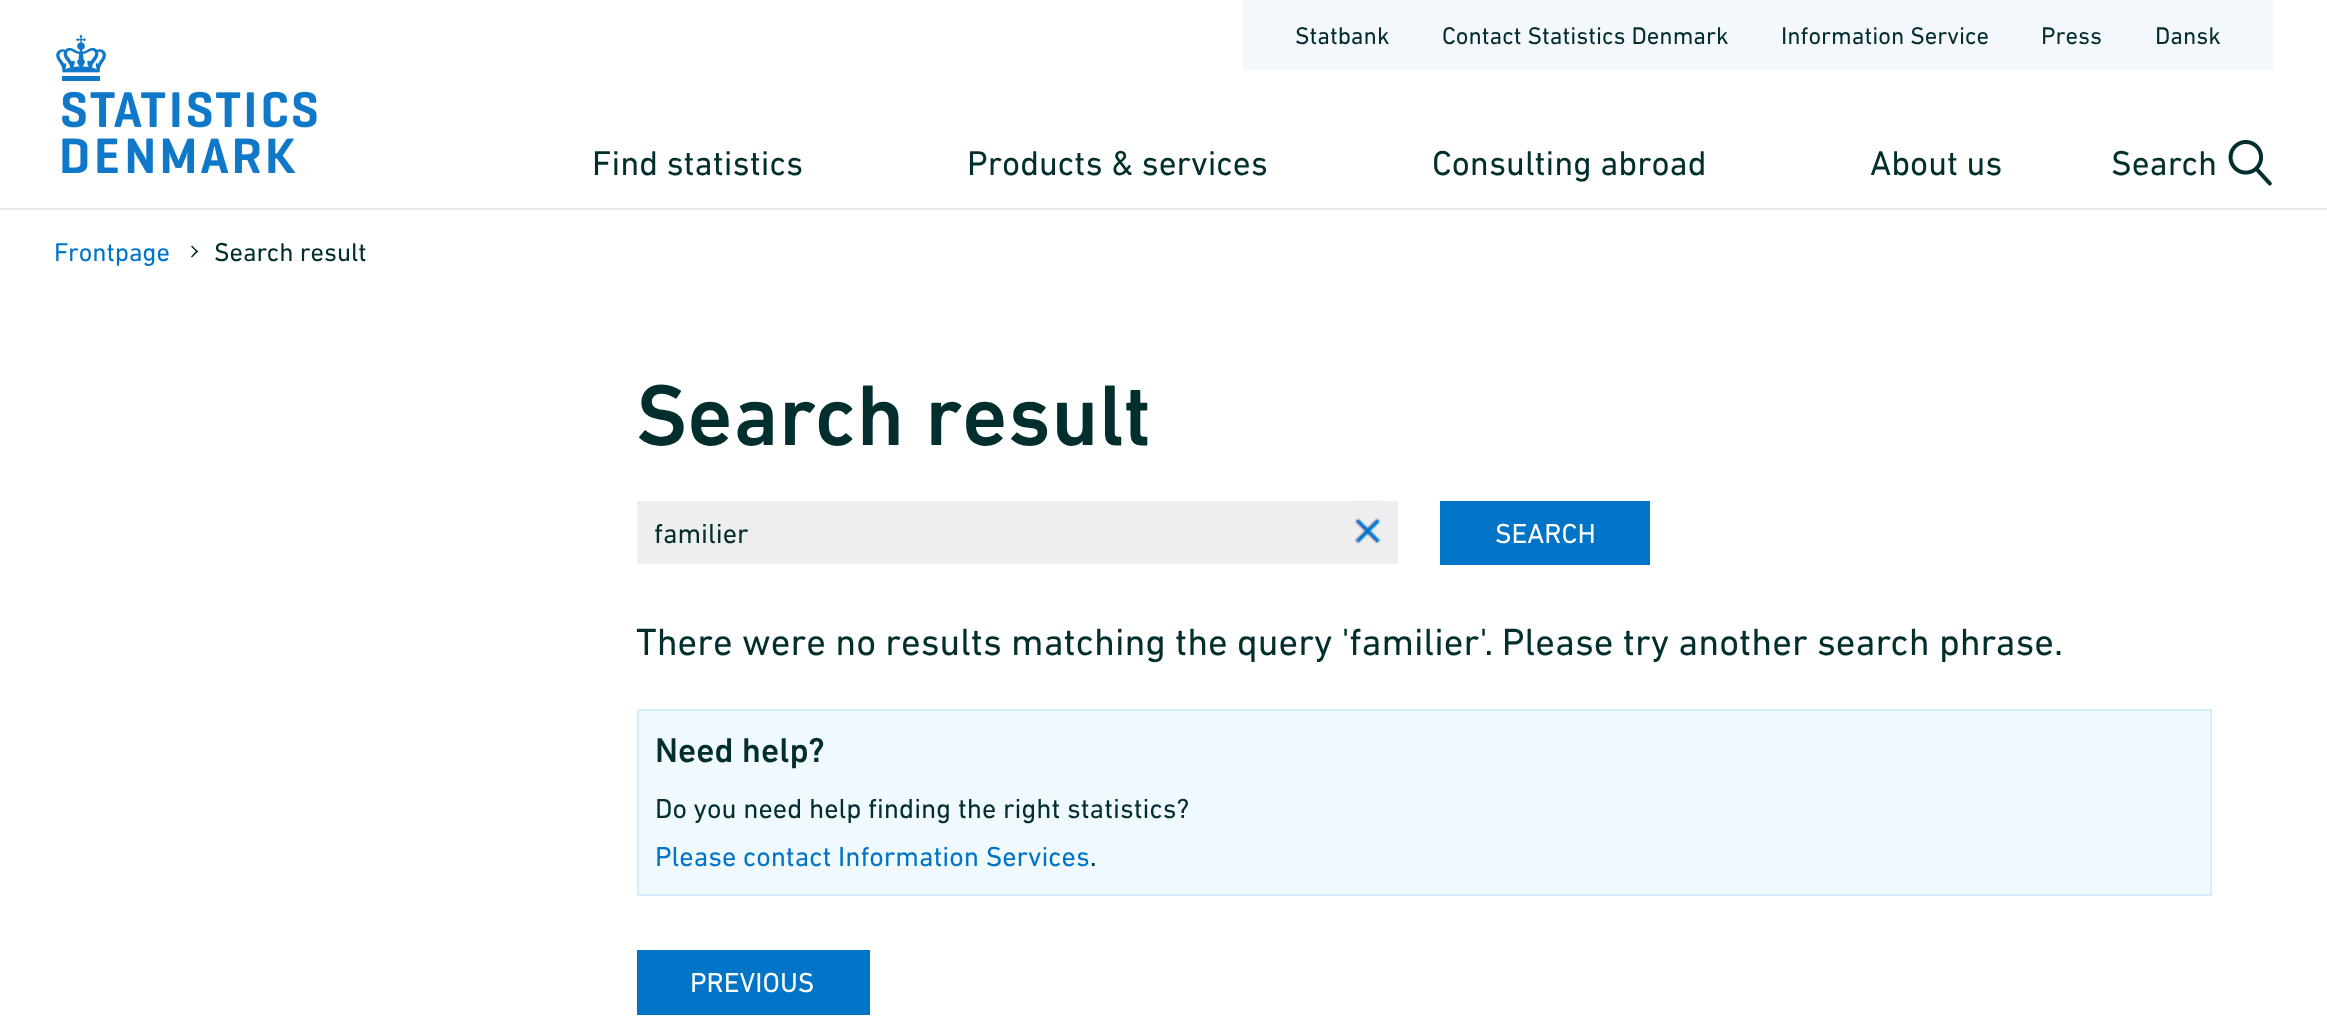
<!DOCTYPE html>
<meta charset="utf-8">
<style>body { margin: 0 } canvas { display: block }</style>
<canvas id="canvas" width="2327" height="1026"></canvas>
<script type="module">
  const canvas = document.getElementById("canvas");
  const g = canvas.getContext("2d");
  g.miterLimit = 4;
  g.fontKerning = "normal";
  function drawText(s, x, y, [font, color]) {
    g.font = font;
    g.fillStyle = color;
    g.fillText(s, x, y);
  }
  function fillBox(x, y, w, h, color) {
    g.fillStyle = color;
    g.fillRect(x, y, w, h);
  }
  async function drawPicture(src, x, y, w, h) {
    const img = new Image();
    img.src = src;
    await img.decode();
    g.drawImage(img, x, y, w, h);
  }

  const s1 = ["24.5px DIN Next", "#022E2E"];
  const s2 = ["35px DIN Next", "#022E2E"];
  const s3 = ["26.25px DIN Next", "#0074C6"];
  const s4 = ["26.25px DIN Next", "#022E2E"];
  const s5 = ["500 87.5px DIN Next", "#022E2E"];
  const s6 = ["28px DIN Next", "#022E2E"];
  const s7 = ["28px DIN Next", "#FFFFFF"];
  const s8 = ["38.5px DIN Next", "#022E2E"];
  const s9 = ["500 35px DIN Next", "#022E2E"];
  const s10 = ["28px DIN Next", "#0074C6"];

  fillBox(0, 0, 2327, 1026, "#FFFFFF");
  fillBox(0, 208, 2327, 2, "#E8E8E8");
  await drawPicture("pic1.png", 56, 35, 261, 138);
  fillBox(1243, 0, 1030, 70, "#F4F7FC");
  drawText("Statbank", 1295, 44, s1);
  drawText("Contact Statistics Denmark", 1442, 44, s1);
  drawText("Information Service", 1781, 44, s1);
  drawText("Press", 2041, 44, s1);
  drawText("Dansk", 2155, 44, s1);
  drawText("Find statistics", 592, 175, s2);
  drawText("Products & services", 967, 175, s2);
  drawText("Consulting abroad", 1432, 175, s2);
  drawText("About us", 1870, 175, s2);
  drawText("Search", 2111, 175, s2);
  await drawPicture("pic2.png", 2228, 140, 44, 46);
  drawText("Frontpage", 54, 261, s3);
  g.fillStyle = "#022E2E";
  g.beginPath();
  g.moveTo(192, 245.5);
  g.lineTo(198, 251.5);
  g.lineTo(197, 252.5);
  g.lineTo(191, 246.5);
  g.closePath();
  g.fill();
  g.beginPath();
  g.moveTo(197, 250);
  g.lineTo(198, 251.5);
  g.lineTo(192, 257.5);
  g.lineTo(191, 256.5);
  g.closePath();
  g.fill();
  drawText("Search result", 214, 261, s4);
  drawText("Search result", 636, 445, s5);
  fillBox(637, 501, 761, 63, "#EEEEEE");
  g.save();
  g.beginPath();
  g.rect(655, 516, 679, 32);
  g.clip();
  drawText("familier", 654, 543, s6);
  g.restore();
  await drawPicture("pic3.png", 1353, 500, 30, 45);
  fillBox(1440, 501, 210, 64, "#0074C6");
  drawText("SEARCH", 1495, 543, s7);
  drawText("There were no results matching the query 'familier'. Please try another search phrase.", 636, 655, s8);
  g.fillStyle = "#EFF9FE";
  g.beginPath();
  g.rect(638, 710, 1573, 185);
  g.fill();
  g.strokeStyle = "#D5EEFA";
  g.lineWidth = 2;
  g.stroke();
  drawText("Need help?", 655, 762, s9);
  drawText("Do you need help finding the right statistics?", 655, 818, s6);
  drawText("Please contact Information Services", 655, 866, s10);
  drawText(".", 1090, 866, s6);
  fillBox(637, 950, 233, 65, "#0074C6");
  drawText("PREVIOUS", 690, 992, s7);
</script>
